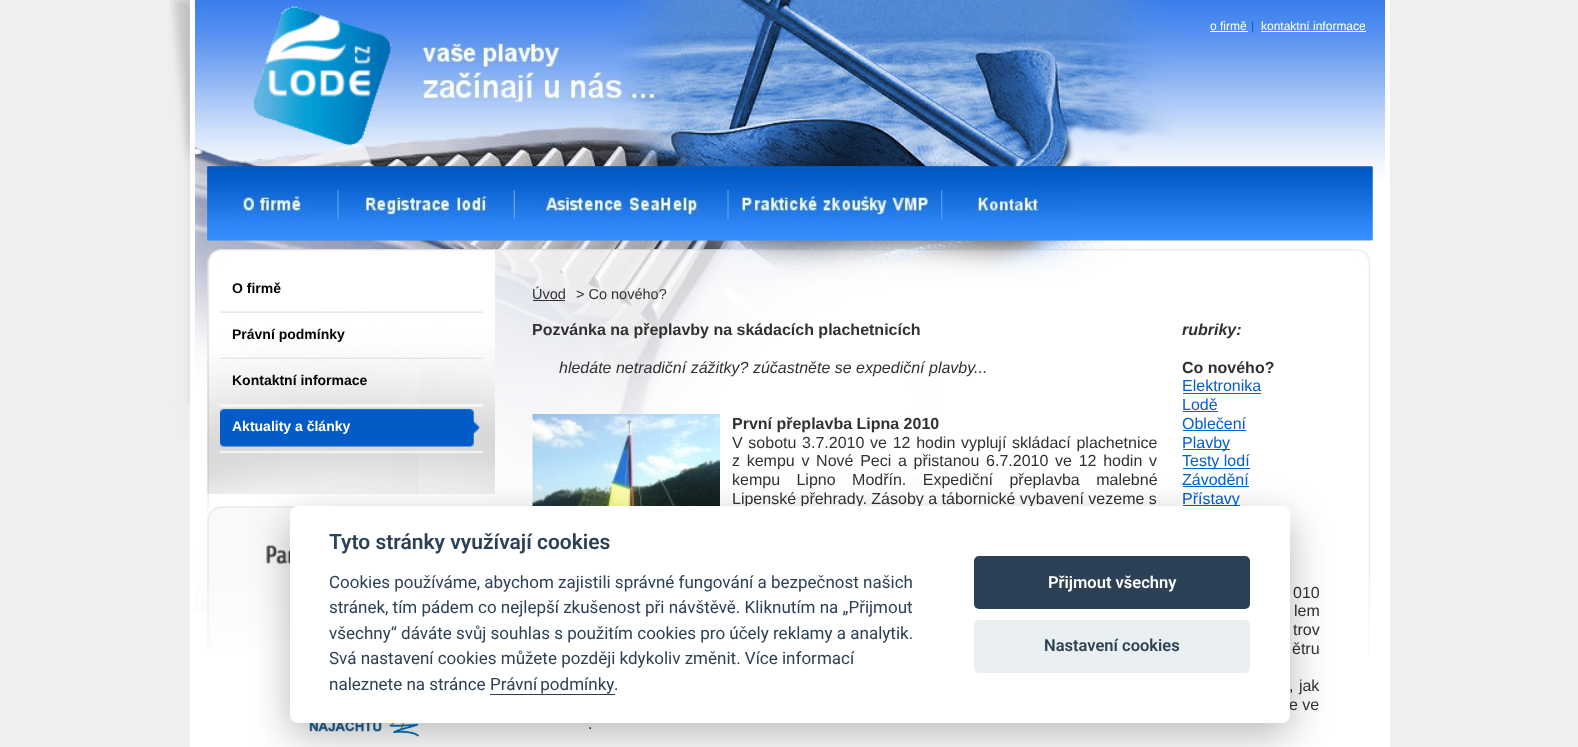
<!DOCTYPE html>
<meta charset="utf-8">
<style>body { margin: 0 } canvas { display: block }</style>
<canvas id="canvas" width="1578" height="747"></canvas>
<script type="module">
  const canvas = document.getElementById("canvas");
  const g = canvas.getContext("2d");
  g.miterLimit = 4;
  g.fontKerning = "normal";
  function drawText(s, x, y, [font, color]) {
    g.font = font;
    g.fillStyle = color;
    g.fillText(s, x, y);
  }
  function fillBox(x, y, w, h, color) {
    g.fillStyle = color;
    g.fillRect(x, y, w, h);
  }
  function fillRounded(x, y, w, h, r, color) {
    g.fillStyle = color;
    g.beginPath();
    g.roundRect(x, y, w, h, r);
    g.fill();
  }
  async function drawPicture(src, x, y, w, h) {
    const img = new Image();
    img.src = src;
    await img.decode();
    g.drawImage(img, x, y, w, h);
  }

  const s1 = ["12px Liberation Sans", "#FFFFFF"];
  const s2 = ["12px Liberation Sans", "#055DCA"];
  const s3 = ["bold 14px Liberation Sans", "#000000"];
  const s4 = ["bold 14px Liberation Sans", "#FFFFFF"];
  const s5 = ["14.5px Liberation Sans", "#313131"];
  const s6 = ["bold 16px Liberation Sans", "#313131"];
  const s7 = ["italic bold 16px Liberation Sans", "#313131"];
  const s8 = ["16px Liberation Sans", "#055DCA"];
  const s9 = ["italic 16px Liberation Sans", "#313131"];
  const s10 = ["16px Liberation Sans", "#313131"];
  const s11 = ["600 21px Roboto", "#2D4156"];
  const s12 = ["17px Roboto", "#2D4156"];
  const s13 = ["600 16.5px Roboto", "#FFFFFF"];
  const s14 = ["600 16.5px Roboto", "#2D4156"];

  fillBox(0, 0, 1578, 747, "#EFEFEF");
  await drawPicture("pic1.png", 169, 0, 21, 747);
  fillBox(190, 0, 1200, 747, "#FFFFFF");
  await drawPicture("pic2.png", 195, 0, 1190, 611);
  await drawPicture("pic3.png", 252, 6, 140, 140);
  drawText("o firmě", 1210, 30, s1);
  fillBox(1210, 31, 38, 1, "#FFFFFF");
  drawText("|", 1251, 30, s2);
  drawText("kontaktní informace", 1261, 30, s1);
  fillBox(1261, 31, 105, 1, "#FFFFFF");
  await drawPicture("pic4.png", 422, 38, 260, 64);
  await drawPicture("pic5.png", 207, 166, 1166, 75);
  await drawPicture("pic6.png", 207, 166, 1166, 75);
  await drawPicture("pic7.png", 207, 166, 131, 75);
  await drawPicture("pic8.png", 337, 166, 2, 75);
  await drawPicture("pic9.png", 338, 166, 176, 75);
  await drawPicture("pic10.png", 513, 166, 2, 75);
  await drawPicture("pic11.png", 515, 166, 213, 75);
  await drawPicture("pic12.png", 727, 166, 2, 75);
  await drawPicture("pic13.png", 728, 166, 214, 75);
  await drawPicture("pic14.png", 941, 166, 2, 75);
  await drawPicture("pic15.png", 942, 166, 137, 75);
  await drawPicture("pic16.png", 207, 249, 1163, 407);
  await drawPicture("pic17.png", 207, 249, 288, 245);
  await drawPicture("pic18.png", 220, 311, 263, 2);
  drawText("O firmě", 232, 293, s3);
  await drawPicture("pic19.png", 220, 357, 263, 3);
  drawText("Právní podmínky", 232, 339, s3);
  fillBox(220, 404, 263, 3, "#F5F5F4");
  drawText("Kontaktní informace", 232, 385, s3);
  await drawPicture("pic20.png", 220, 408, 263, 45);
  drawText("Aktuality a články", 232, 431, s4);
  await drawPicture("pic21.png", 207, 506, 91, 144);
  await drawPicture("pic22.png", 266, 531, 24, 63);
  await drawPicture("pic23.png", 309, 723, 110, 14);
  drawText("Úvod", 532, 299, s5);
  fillBox(533, 300, 32, 1, "#313131");
  drawText("> Co nového?", 576, 299, s5);
  drawText("Pozvánka na přeplavby na skádacích plachetnicích", 532, 335, s6);
  drawText("rubriky:", 1182, 335, s7);
  drawText("Co nového?", 1182, 373, s6);
  drawText("Elektronika", 1182, 391, s8);
  fillBox(1183, 393, 78, 1, "#0961CE");
  drawText("Lodě", 1182, 410, s8);
  fillBox(1183, 411, 35, 1, "#0961CE");
  drawText("Oblečení", 1182, 429, s8);
  fillBox(1183, 430, 63, 1, "#0961CE");
  fillBox(1183, 449, 47, 1, "#0961CE");
  drawText("Plavby", 1182, 448, s8);
  fillBox(1183, 468, 67, 1, "#0961CE");
  drawText("Testy lodí", 1182, 466, s8);
  drawText("Závodění", 1182, 485, s8);
  fillBox(1183, 486, 66, 1, "#0961CE");
  fillBox(1183, 505, 57, 1, "#0961CE");
  drawText("Přístavy", 1182, 504, s8);
  drawText("hledáte netradiční zážitky? zúčastněte se expediční plavby...", 559, 373, s9);
  await drawPicture("pic24.png", 532, 414, 188, 92);
  drawText("První přeplavba Lipna 2010", 732, 429, s6);
  g.wordSpacing = "1.25px";
  drawText("V sobotu 3.7.2010 ve 12 hodin vyplují skládací plachetnice", 732, 448, s10);
  g.wordSpacing = "2.25px";
  drawText("z kempu v Nové Peci a přistanou 6.7.2010 ve 12 hodin v", 732, 466, s10);
  g.wordSpacing = "12px";
  drawText("kempu Lipno Modřín. Expediční přeplavba malebné", 732, 485, s10);
  g.wordSpacing = "0px";
  drawText("Lipenské přehrady. Zásoby a tábornické vybavení vezeme s", 732, 504, s10);
  g.wordSpacing = "2px";
  drawText("010", 1293, 598, s10);
  g.wordSpacing = "7px";
  drawText("lem", 1294, 616, s10);
  g.wordSpacing = "8px";
  drawText("trov", 1293, 635, s10);
  g.wordSpacing = "1px";
  drawText("ětru", 1292, 654, s10);
  drawText(", jak", 1289, 691, s10);
  g.wordSpacing = "0px";
  drawText("e ve", 1289, 710, s10);
  drawText(".", 588, 729, s10);
  g.fillStyle = "rgba(2, 2, 3, 0.28)";
  g.filter = "blur(19px)";
  g.beginPath();
  g.roundRect(290, 519, 1000, 216, 8);
  g.fill();
  g.filter = "none";
  fillRounded(290, 506, 1000, 217, 8, "#FFFFFF");
  drawText("Tyto stránky využívají cookies", 329, 549, s11);
  drawText("Cookies používáme, abychom zajistili správné fungování a bezpečnost našich", 329, 588, s12);
  drawText("stránek, tím pádem co nejlepší zkušenost při návštěvě. Kliknutím na „Přijmout", 329, 613, s12);
  drawText("všechny“ dáváte svůj souhlas s použitím cookies pro účely reklamy a analytik.", 329, 639, s12);
  drawText("Svá nastavení cookies můžete později kdykoliv změnit. Více informací", 329, 664, s12);
  drawText("naleznete na stránce", 329, 690, s12);
  g.wordSpacing = "-1px";
  drawText("Právní podmínky", 490, 690, s12);
  fillBox(490, 694, 125, 1, "#2D4156");
  g.wordSpacing = "0px";
  drawText(".", 614, 690, s12);
  fillRounded(974, 556, 276, 53, 5, "#2D4156");
  drawText("Přijmout všechny", 1048, 588, s13);
  fillRounded(974, 620, 276, 53, 5, "#EAEFF2");
  drawText("Nastavení cookies", 1044, 651, s14);
</script>
